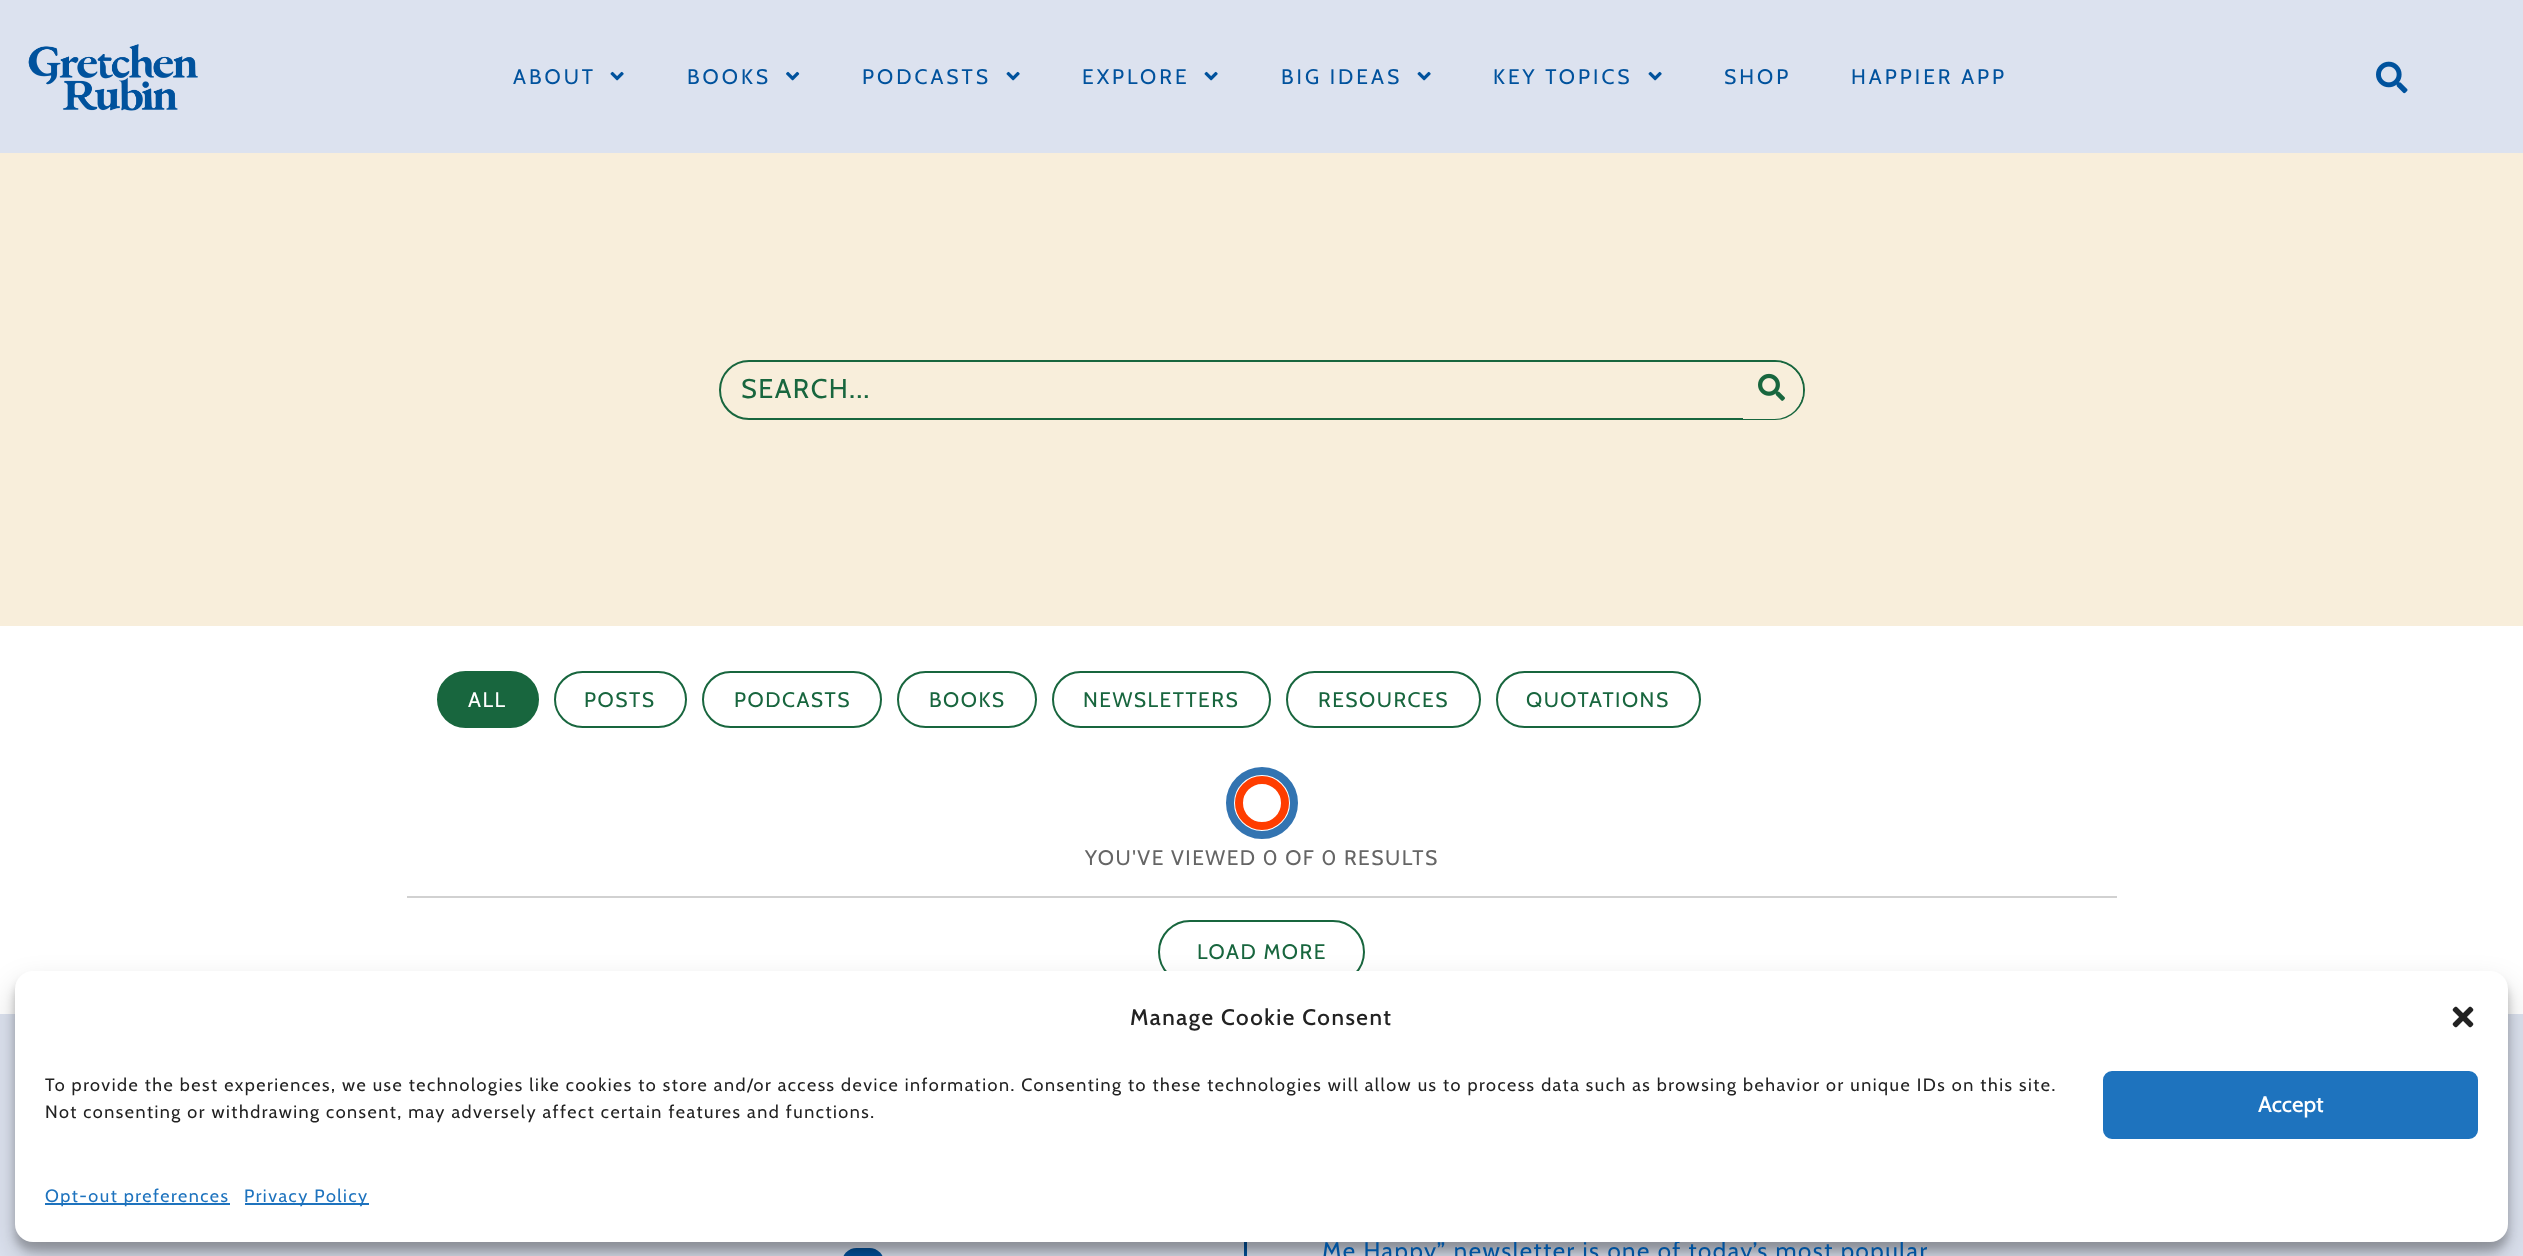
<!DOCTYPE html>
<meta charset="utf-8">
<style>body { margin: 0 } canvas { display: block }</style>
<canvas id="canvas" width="2523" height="1256"></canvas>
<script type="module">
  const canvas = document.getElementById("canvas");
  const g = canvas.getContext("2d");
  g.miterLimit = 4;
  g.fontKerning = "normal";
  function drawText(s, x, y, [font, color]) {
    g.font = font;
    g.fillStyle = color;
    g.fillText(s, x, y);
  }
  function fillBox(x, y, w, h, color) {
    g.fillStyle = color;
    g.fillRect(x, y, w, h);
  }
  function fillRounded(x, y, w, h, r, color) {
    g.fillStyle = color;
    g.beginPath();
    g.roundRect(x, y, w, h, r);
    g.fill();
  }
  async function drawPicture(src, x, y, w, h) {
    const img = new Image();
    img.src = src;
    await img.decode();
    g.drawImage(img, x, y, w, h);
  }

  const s1 = ["21px Cabin", "#00529D"];
  const s2 = ["27px Cabin", "#18663E"];
  const s3 = ["21px Cabin", "#FFFFFF"];
  const s4 = ["21px Cabin", "#18663E"];
  const s5 = ["21px Cabin", "#656565"];
  const s6 = ["24px Cabin", "#00529D"];
  const s7 = ["500 22.5px Cabin", "#222222"];
  const s8 = ["18px Cabin", "#222222"];
  const s9 = ["500 22.5px Cabin", "#FFFFFF"];
  const s10 = ["18px Cabin", "#1E73BE"];

  fillBox(0, 0, 2523, 1256, "#FFFFFF");
  fillBox(0, 0, 2523, 153, "#DCE2EF");
  await drawPicture("pic1.png", 28, 44, 170, 67);
  g.letterSpacing = "3px";
  drawText("ABOUT", 513, 84, s1);
  await drawPicture("pic2.png", 610, 71, 14, 10);
  drawText("BOOKS", 687, 84, s1);
  await drawPicture("pic3.png", 786, 71, 14, 10);
  drawText("PODCASTS", 862, 84, s1);
  await drawPicture("pic2.png", 1006, 71, 14, 10);
  drawText("EXPLORE", 1082, 84, s1);
  await drawPicture("pic2.png", 1204, 71, 14, 10);
  drawText("BIG IDEAS", 1281, 84, s1);
  await drawPicture("pic2.png", 1417, 71, 14, 10);
  drawText("KEY TOPICS", 1493, 84, s1);
  await drawPicture("pic2.png", 1648, 71, 14, 10);
  drawText("SHOP", 1724, 84, s1);
  drawText("HAPPIER APP", 1851, 84, s1);
  await drawPicture("pic4.png", 2376, 61, 32, 33);
  fillBox(0, 153, 2523, 473, "#F8EEDB");
  g.beginPath();
  g.roundRect(720, 361, 1084, 58, 29);
  g.strokeStyle = "#18663E";
  g.lineWidth = 2;
  g.stroke();
  g.letterSpacing = "1.5px";
  drawText("SEARCH...", 741, 398, s2);
  g.fillStyle = "#F8EEDB";
  g.beginPath();
  g.roundRect(1743, 362, 60, 57, [0, 28.5, 28.5, 0]);
  g.fill();
  await drawPicture("pic5.png", 1758, 373, 27, 28);
  g.fillStyle = "#18663E";
  g.beginPath();
  g.roundRect(438, 672, 100, 55, 27.5);
  g.fill();
  g.stroke();
  drawText("ALL", 468, 707, s3);
  g.beginPath();
  g.roundRect(555, 672, 131, 55, 27.5);
  g.stroke();
  drawText("POSTS", 584, 707, s4);
  g.beginPath();
  g.roundRect(703, 672, 178, 55, 27.5);
  g.stroke();
  drawText("PODCASTS", 734, 707, s4);
  g.beginPath();
  g.roundRect(898, 672, 138, 55, 27.5);
  g.stroke();
  drawText("BOOKS", 929, 707, s4);
  g.beginPath();
  g.roundRect(1053, 672, 217, 55, 27.5);
  g.stroke();
  drawText("NEWSLETTERS", 1083, 707, s4);
  g.beginPath();
  g.roundRect(1287, 672, 193, 55, 27.5);
  g.stroke();
  drawText("RESOURCES", 1318, 707, s4);
  g.beginPath();
  g.roundRect(1497, 672, 203, 55, 27.5);
  g.stroke();
  drawText("QUOTATIONS", 1526, 707, s4);
  g.beginPath();
  g.arc(1262, 803, 32, 0, Math.PI * 2);
  g.strokeStyle = "#3374B1";
  g.lineWidth = 8;
  g.stroke();
  g.beginPath();
  g.arc(1262, 803, 23, 0, Math.PI * 2);
  g.strokeStyle = "#FF3D00";
  g.stroke();
  drawText("YOU'VE VIEWED 0 OF 0 RESULTS", 1085, 865, s5);
  fillBox(407, 896, 1710, 2, "#D1D1D1");
  g.beginPath();
  g.roundRect(1159, 921, 205, 62, 31);
  g.strokeStyle = "#18663E";
  g.lineWidth = 2;
  g.stroke();
  drawText("LOAD MORE", 1197, 959, s4);
  fillBox(0, 1014, 2523, 242, "#DCE2EF");
  fillRounded(842, 1248, 42, 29, 21, "#00529D");
  fillBox(1244, 1242, 3, 14, "#00529D");
  g.fillStyle = "rgba(0, 0, 0, 0.23)";
  g.filter = "blur(4.5px)";
  g.beginPath();
  g.roundRect(15, 980, 2493, 271, 18);
  g.fill();
  g.filter = "none";
  g.fillStyle = "rgba(0, 0, 0, 0.19)";
  g.filter = "blur(15px)";
  g.beginPath();
  g.roundRect(15, 986, 2493, 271, 18);
  g.fill();
  g.filter = "none";
  drawText("Me Happy” newsletter is one of today’s most popular", 1322, 1259, s6);
  fillRounded(15, 971, 2493, 271, 18, "#FFFFFF");
  drawText("Manage Cookie Consent", 1130, 1025, s7);
  await drawPicture("pic6.png", 2452, 1006, 22, 22);
  drawText("To provide the best experiences, we use technologies like cookies to store and/or access device information. Consenting to these technologies will allow us to process data such as browsing behavior or unique IDs on this site.", 45, 1091, s8);
  drawText("Not consenting or withdrawing consent, may adversely affect certain features and functions.", 45, 1118, s8);
  g.fillStyle = "#1E73BE";
  g.beginPath();
  g.roundRect(2104, 1072, 373, 66, 8);
  g.fill();
  g.strokeStyle = "#1E73BE";
  g.stroke();
  g.letterSpacing = "0px";
  drawText("Accept", 2258, 1112, s9);
  fillBox(45, 1203, 185, 2, "#1E73BE");
  g.letterSpacing = "1.5px";
  drawText("Opt-out preferences", 45, 1202, s10);
  fillBox(245, 1203, 124, 2, "#1E73BE");
  drawText("Privacy Policy", 244, 1202, s10);
</script>
